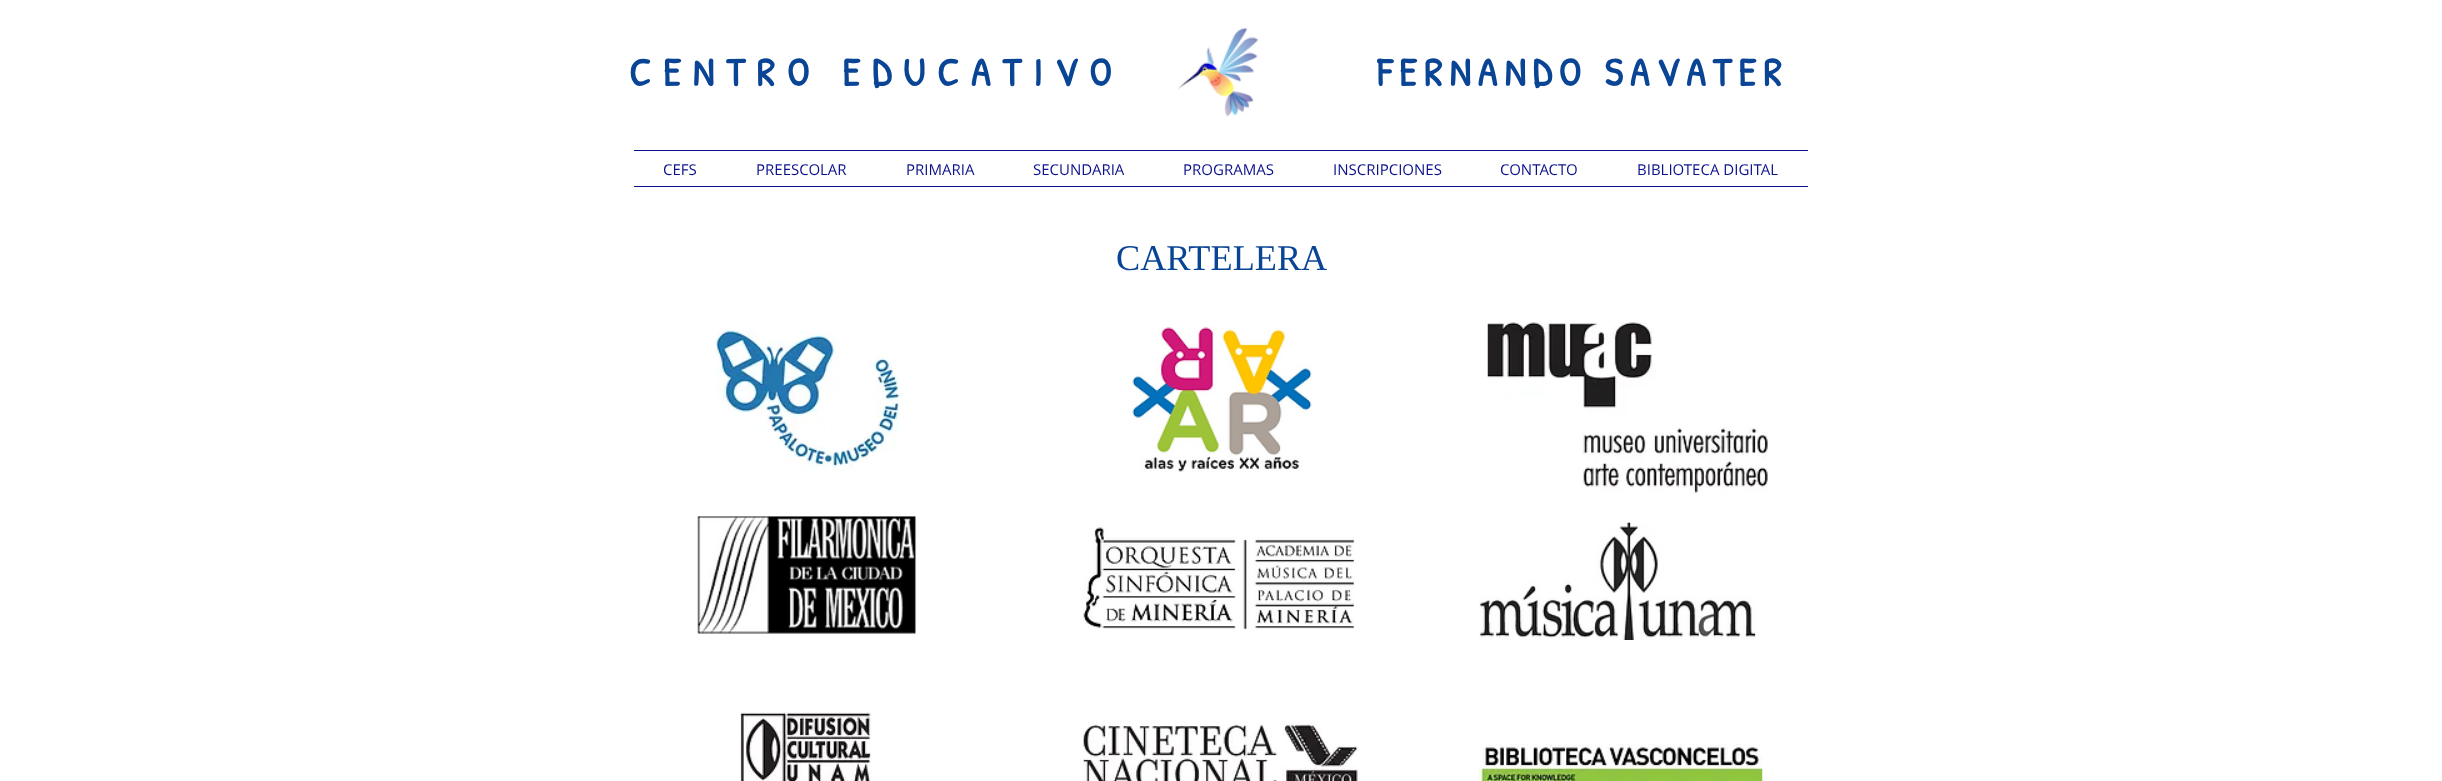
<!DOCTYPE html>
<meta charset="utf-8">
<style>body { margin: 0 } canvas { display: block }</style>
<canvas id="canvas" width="2442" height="781"></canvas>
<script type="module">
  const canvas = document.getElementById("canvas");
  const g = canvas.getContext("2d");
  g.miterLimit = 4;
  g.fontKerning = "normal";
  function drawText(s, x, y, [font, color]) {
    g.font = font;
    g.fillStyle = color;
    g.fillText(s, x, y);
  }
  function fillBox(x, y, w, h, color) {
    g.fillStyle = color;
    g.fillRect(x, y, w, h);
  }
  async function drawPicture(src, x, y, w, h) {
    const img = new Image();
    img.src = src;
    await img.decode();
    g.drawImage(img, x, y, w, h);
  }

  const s1 = ["bold 40px Patrick Hand", "#0A4495"];
  const s2 = ["15px Open Sans", "#0B1189"];
  const s3 = ["36.25px Liberation Serif", "#0A4495"];

  fillBox(0, 0, 2442, 781, "#FFFFFF");
  g.letterSpacing = "12px";
  drawText("CENTRO EDUCATIVO", 629, 86, s1);
  await drawPicture("pic1.png", 1178, 27, 81, 90);
  g.letterSpacing = "7.1px";
  drawText("FERNANDO SAVATER", 1377, 86, s1);
  fillBox(634, 150, 1174, 1, "#0B1189");
  fillBox(634, 186, 1174, 1, "#0B1189");
  g.letterSpacing = "0px";
  drawText("CEFS", 663, 175, s2);
  drawText("PREESCOLAR", 756, 175, s2);
  drawText("PRIMARIA", 906, 175, s2);
  drawText("SECUNDARIA", 1033, 175, s2);
  drawText("PROGRAMAS", 1183, 175, s2);
  drawText("INSCRIPCIONES", 1333, 175, s2);
  drawText("CONTACTO", 1500, 175, s2);
  drawText("BIBLIOTECA DIGITAL", 1637, 175, s2);
  drawText("CARTELERA", 1116, 270, s3);
  await drawPicture("pic2.png", 716, 330, 187, 141);
  await drawPicture("pic3.png", 1132, 327, 180, 145);
  await drawPicture("pic4.png", 1487, 322, 281, 171);
  await drawPicture("pic5.png", 697, 516, 220, 118);
  await drawPicture("pic6.png", 1083, 525, 272, 105);
  await drawPicture("pic7.png", 1479, 522, 277, 118);
  await drawPicture("pic8.png", 739, 712, 133, 69);
  await drawPicture("pic9.png", 1083, 721, 275, 60);
  await drawPicture("pic10.png", 1478, 744, 285, 37);
</script>
